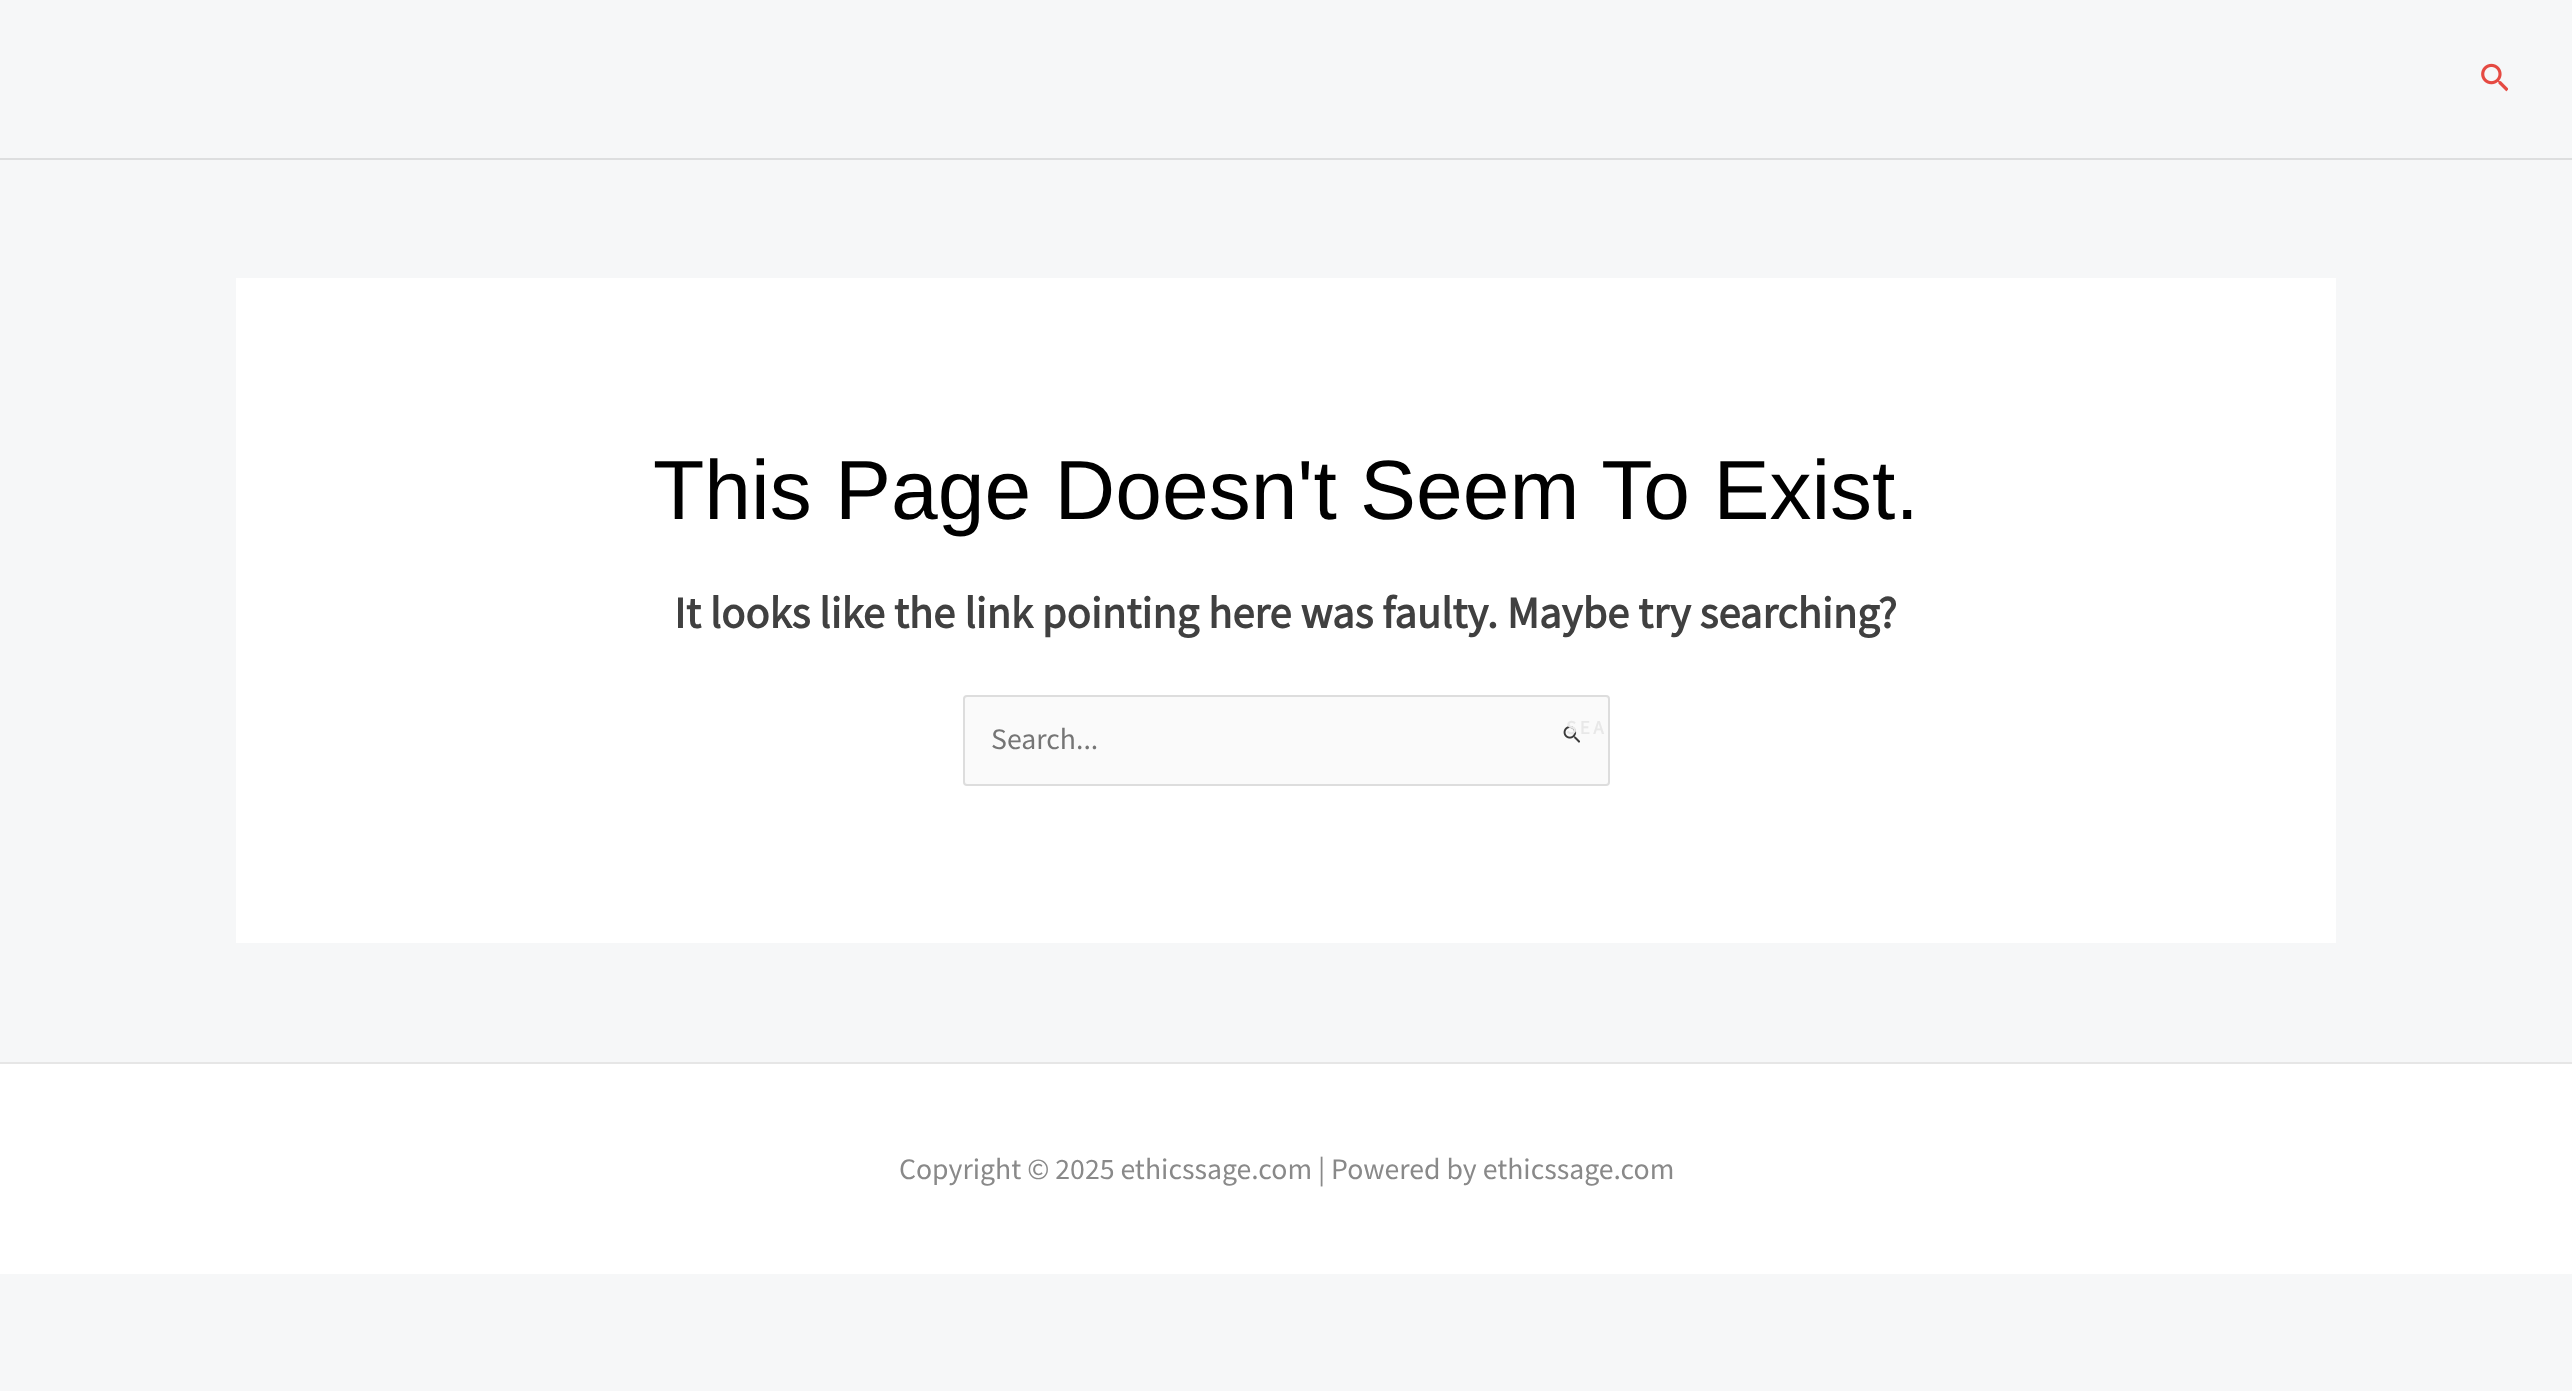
<!DOCTYPE html>
<meta charset="utf-8">
<style>body { margin: 0 } canvas { display: block }</style>
<canvas id="canvas" width="2572" height="1391"></canvas>
<script type="module">
  const canvas = document.getElementById("canvas");
  const g = canvas.getContext("2d");
  g.miterLimit = 4;
  g.fontKerning = "normal";
  function drawText(s, x, y, [font, color]) {
    g.font = font;
    g.fillStyle = color;
    g.fillText(s, x, y);
  }
  function fillBox(x, y, w, h, color) {
    g.fillStyle = color;
    g.fillRect(x, y, w, h);
  }
  async function drawPicture(src, x, y, w, h) {
    const img = new Image();
    img.src = src;
    await img.decode();
    g.drawImage(img, x, y, w, h);
  }

  const s1 = ["84px Liberation Sans", "#000000"];
  const s2 = ["bold 44.6px Source Sans Pro", "#404040"];
  const s3 = ["29.75px Source Sans Pro", "#757575"];
  const s4 = ["bold 19px Source Sans Pro", "#E8E8E8"];
  const s5 = ["29.75px Source Sans Pro", "#898989"];

  fillBox(0, 0, 2572, 1391, "#F6F7F8");
  fillBox(0, 158, 2572, 2, "#DDDEDF");
  await drawPicture("pic1.png", 2481, 63, 27, 29);
  fillBox(236, 278, 2100, 665, "#FFFFFF");
  drawText("This Page Doesn't Seem To Exist.", 653, 519, s1);
  drawText("It looks like the link pointing here was faulty. Maybe try searching?", 674, 628, s2);
  g.fillStyle = "#FAFAFA";
  g.beginPath();
  g.roundRect(964, 696, 645, 89, 3);
  g.fill();
  g.strokeStyle = "#DDDDDD";
  g.lineWidth = 2;
  g.stroke();
  drawText("Search...", 991, 749, s3);
  await drawPicture("pic2.png", 1563, 726, 17, 17);
  g.letterSpacing = "3.5px";
  drawText("SEA", 1566, 734, s4);
  fillBox(0, 1064, 2572, 210, "#FFFFFF");
  fillBox(0, 1062, 2572, 2, "#E6E6E6");
  g.letterSpacing = "0px";
  drawText("Copyright © 2025 ethicssage.com | Powered by ethicssage.com", 899, 1179, s5);
</script>
